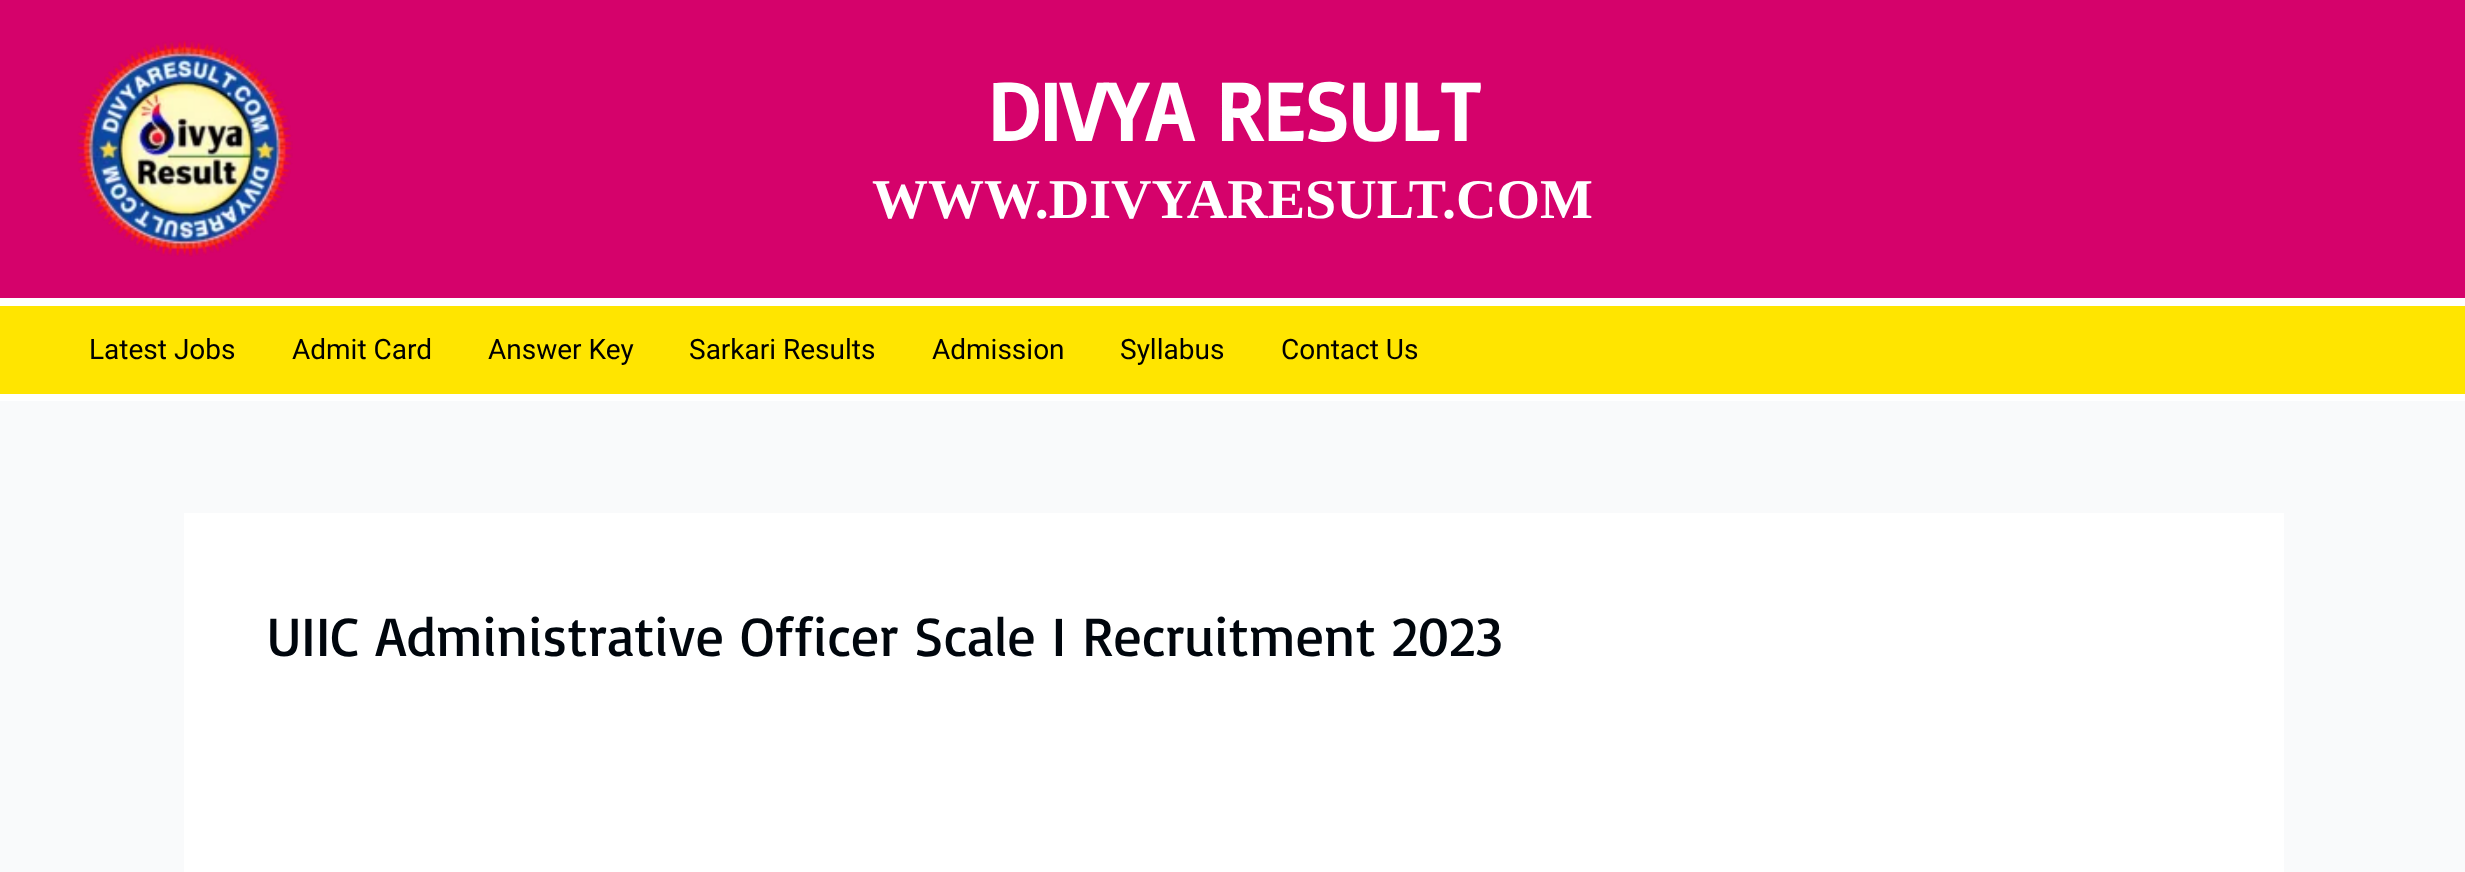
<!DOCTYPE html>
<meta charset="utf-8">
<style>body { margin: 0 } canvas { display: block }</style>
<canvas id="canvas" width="2465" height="872"></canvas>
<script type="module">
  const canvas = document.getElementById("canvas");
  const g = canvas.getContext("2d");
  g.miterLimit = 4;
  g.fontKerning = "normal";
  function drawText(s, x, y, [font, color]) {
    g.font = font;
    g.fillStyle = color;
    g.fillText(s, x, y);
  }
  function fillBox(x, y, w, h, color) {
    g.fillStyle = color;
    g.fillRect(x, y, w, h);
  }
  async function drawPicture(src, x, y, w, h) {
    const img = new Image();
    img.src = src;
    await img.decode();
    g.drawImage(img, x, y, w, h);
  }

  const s1 = ["bold 84px Basic", "#FFFFFF"];
  const s2 = ["bold 56px Liberation Serif", "#FFFFFF"];
  const s3 = ["28px Roboto", "#000000"];
  const s4 = ["56px Basic", "#00060D"];

  fillBox(0, 0, 2465, 872, "#F9FAFB");
  fillBox(0, 0, 2465, 298, "#D5026B");
  fillBox(0, 298, 2465, 8, "#FFFFFF");
  await drawPicture("pic1.png", 77, 40, 216, 217);
  drawText("DIVYA RESULT", 987, 141, s1);
  drawText("WWW.DIVYARESULT.COM", 872, 218, s2);
  fillBox(0, 306, 2465, 88, "#FFE500");
  fillBox(0, 394, 2465, 7, "#FFFFFF");
  drawText("Latest Jobs", 89, 359, s3);
  drawText("Admit Card", 292, 359, s3);
  drawText("Answer Key", 488, 359, s3);
  drawText("Sarkari Results", 689, 359, s3);
  drawText("Admission", 932, 359, s3);
  drawText("Syllabus", 1120, 359, s3);
  drawText("Contact Us", 1281, 359, s3);
  fillBox(184, 513, 2100, 359, "#FFFFFF");
  drawText("UIIC Administrative Officer Scale I Recruitment 2023", 267, 656, s4);
</script>
